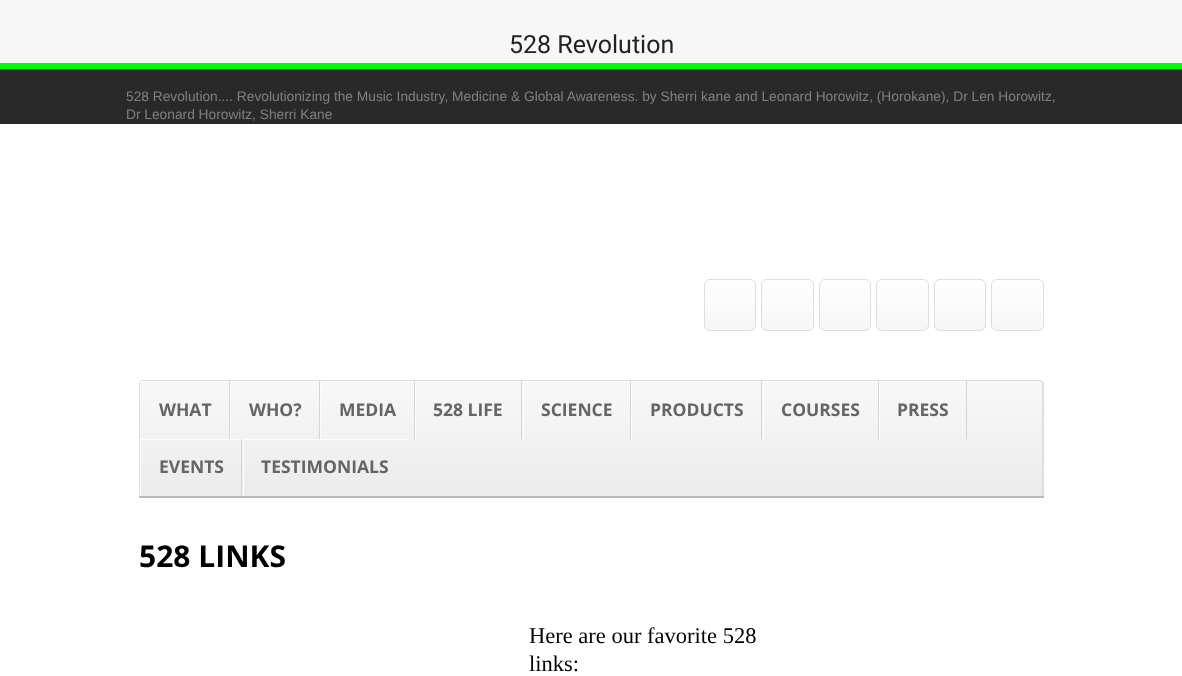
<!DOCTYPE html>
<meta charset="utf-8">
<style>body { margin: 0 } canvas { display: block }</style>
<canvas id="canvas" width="1182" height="676"></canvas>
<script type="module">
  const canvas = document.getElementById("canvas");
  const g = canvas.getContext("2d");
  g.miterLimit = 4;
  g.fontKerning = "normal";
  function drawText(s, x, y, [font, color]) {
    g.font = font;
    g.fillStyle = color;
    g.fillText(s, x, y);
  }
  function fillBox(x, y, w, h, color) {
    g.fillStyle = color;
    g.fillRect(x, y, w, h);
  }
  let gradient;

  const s1 = ["25px Roboto", "#222222"];
  const s2 = ["13.75px Liberation Sans", "#808080"];
  const s3 = ["bold 17.5px Open Sans", "#656565"];
  const s4 = ["bold 30px Open Sans", "#000000"];
  const s5 = ["22.5px Liberation Serif", "#000000"];

  fillBox(0, 0, 1182, 676, "#FFFFFF");
  fillBox(0, 0, 1182, 63, "#F7F7F7");
  drawText("528 Revolution", 509, 53, s1);
  fillBox(0, 63, 1182, 6, "#01FB09");
  fillBox(0, 69, 1182, 55, "#292929");
  drawText("528 Revolution.... Revolutionizing the Music Industry, Medicine & Global Awareness. by Sherri kane and Leonard Horowitz, (Horokane), Dr Len Horowitz,", 126, 101, s2);
  drawText("Dr Leonard Horowitz, Sherri Kane", 126, 119, s2);
  g.save();
  g.beginPath();
  g.roundRect(704, 279, 52, 52, 6);
  g.clip();
  gradient = g.createLinearGradient(730, 280, 730, 330);
  gradient.addColorStop(0, "#FFFFFF");
  gradient.addColorStop(1, "#F6F6F6");
  g.fillStyle = gradient;
  g.fillRect(704, 280, 52, 50);
  g.restore();
  g.beginPath();
  g.roundRect(704.5, 279.5, 51, 51, 5.5);
  g.strokeStyle = "#DEDEDE";
  g.stroke();
  g.save();
  g.beginPath();
  g.roundRect(761, 279, 53, 52, 6);
  g.clip();
  gradient = g.createLinearGradient(788, 280, 788, 330);
  gradient.addColorStop(0, "#FFFFFF");
  gradient.addColorStop(1, "#F6F6F6");
  g.fillStyle = gradient;
  g.fillRect(761, 280, 53, 50);
  g.restore();
  g.fillStyle = "#FFFFFF";
  g.beginPath();
  g.moveTo(768, 281);
  g.lineTo(808, 281);
  g.bezierCurveTo(810, 281, 812, 283, 812, 286);
  g.lineTo(812, 326);
  g.lineTo(811, 329);
  g.bezierCurveTo(812, 328, 813, 326, 813, 325);
  g.lineTo(813, 285);
  g.bezierCurveTo(813, 282, 811, 280, 808, 280);
  g.lineTo(768, 280);
  g.bezierCurveTo(766, 280, 764, 281, 764, 283);
  g.bezierCurveTo(765, 282, 766, 281, 768, 281);
  g.closePath();
  g.fill();
  g.beginPath();
  g.roundRect(761.5, 279.5, 52, 51, 5.5);
  g.stroke();
  g.save();
  g.beginPath();
  g.roundRect(819, 279, 52, 52, 6);
  g.clip();
  gradient = g.createLinearGradient(845, 280, 845, 330);
  gradient.addColorStop(0, "#FFFFFF");
  gradient.addColorStop(1, "#F6F6F6");
  g.fillStyle = gradient;
  g.fillRect(819, 280, 52, 50);
  g.restore();
  g.beginPath();
  g.roundRect(819.5, 279.5, 51, 51, 5.5);
  g.stroke();
  g.save();
  g.beginPath();
  g.roundRect(876, 279, 53, 52, 6);
  g.clip();
  gradient = g.createLinearGradient(903, 280, 903, 330);
  gradient.addColorStop(0, "#FFFFFF");
  gradient.addColorStop(1, "#F6F6F6");
  g.fillStyle = gradient;
  g.fillRect(876, 280, 53, 50);
  g.restore();
  g.beginPath();
  g.roundRect(876.5, 279.5, 52, 51, 5.5);
  g.stroke();
  g.save();
  g.beginPath();
  g.roundRect(934, 279, 52, 52, 6);
  g.clip();
  gradient = g.createLinearGradient(960, 280, 960, 330);
  gradient.addColorStop(0, "#FFFFFF");
  gradient.addColorStop(1, "#F6F6F6");
  g.fillStyle = gradient;
  g.fillRect(934, 280, 52, 50);
  g.restore();
  g.beginPath();
  g.roundRect(934.5, 279.5, 51, 51, 5.5);
  g.stroke();
  g.save();
  g.beginPath();
  g.roundRect(991, 279, 53, 52, 6);
  g.clip();
  gradient = g.createLinearGradient(1018, 280, 1018, 330);
  gradient.addColorStop(0, "#FFFFFF");
  gradient.addColorStop(1, "#F6F6F6");
  g.fillStyle = gradient;
  g.fillRect(991, 280, 53, 50);
  g.restore();
  g.beginPath();
  g.moveTo(998, 281);
  g.lineTo(1038, 281);
  g.bezierCurveTo(1040, 281, 1042, 283, 1042, 286);
  g.lineTo(1042, 326);
  g.lineTo(1041, 329);
  g.bezierCurveTo(1042, 328, 1043, 326, 1043, 325);
  g.lineTo(1043, 285);
  g.bezierCurveTo(1043, 282, 1041, 280, 1038, 280);
  g.lineTo(998, 280);
  g.bezierCurveTo(996, 280, 994, 281, 994, 283);
  g.bezierCurveTo(995, 282, 996, 281, 998, 281);
  g.closePath();
  g.fill();
  g.beginPath();
  g.roundRect(991.5, 279.5, 52, 51, 5.5);
  g.stroke();
  g.fillStyle = "#BCBBB9";
  g.beginPath();
  g.moveTo(139, 496);
  g.lineTo(139, 498);
  g.lineTo(1044, 498);
  g.lineTo(1044, 384);
  g.lineTo(1044, 496);
  g.closePath();
  g.fill();
  g.save();
  g.beginPath();
  g.roundRect(139, 380, 905, 116, [4, 4, 0, 0]);
  g.clip();
  gradient = g.createLinearGradient(591, 381, 591, 496);
  gradient.addColorStop(0, "#F8F8F8");
  gradient.addColorStop(1, "#EBEBEB");
  g.fillStyle = gradient;
  g.fillRect(139, 381, 905, 115);
  g.restore();
  g.fillStyle = "#DEDEDE";
  g.beginPath();
  g.moveTo(142, 380);
  g.lineTo(1040, 380);
  g.bezierCurveTo(1042, 380, 1044, 382, 1044, 384);
  g.lineTo(1044, 496);
  g.lineTo(139, 496);
  g.lineTo(139, 384);
  g.bezierCurveTo(139, 382, 140, 380, 142, 380);
  g.closePath();
  g.moveTo(142, 381);
  g.lineTo(1040, 381);
  g.bezierCurveTo(1041, 381, 1042, 382, 1042, 384);
  g.lineTo(1042, 496);
  g.lineTo(140, 496);
  g.lineTo(140, 384);
  g.bezierCurveTo(140, 382, 141, 381, 142, 381);
  g.closePath();
  g.fill("evenodd");
  fillBox(140, 381, 828, 1, "#FFFFFF");
  fillBox(229, 381, 1, 58, "#D5D5D5");
  drawText("WHAT", 159, 416, s3);
  fillBox(230, 381, 1, 58, "#FCFCFC");
  fillBox(319, 381, 1, 58, "#D5D5D5");
  drawText("WHO?", 249, 416, s3);
  fillBox(320, 381, 1, 58, "#FCFCFC");
  fillBox(414, 381, 1, 58, "#D5D5D5");
  drawText("MEDIA", 339, 416, s3);
  fillBox(415, 381, 1, 58, "#FCFCFC");
  fillBox(521, 381, 1, 58, "#D5D5D5");
  drawText("528 LIFE", 433, 416, s3);
  fillBox(523, 381, 1, 58, "#FCFCFC");
  fillBox(630, 381, 1, 58, "#D5D5D5");
  drawText("SCIENCE", 541, 416, s3);
  fillBox(631, 381, 1, 58, "#FCFCFC");
  fillBox(761, 381, 1, 58, "#D5D5D5");
  drawText("PRODUCTS", 650, 416, s3);
  fillBox(763, 381, 1, 58, "#FCFCFC");
  fillBox(878, 381, 1, 58, "#D5D5D5");
  drawText("COURSES", 781, 416, s3);
  fillBox(879, 381, 1, 58, "#FCFCFC");
  fillBox(966, 381, 1, 58, "#D5D5D5");
  drawText("PRESS", 897, 416, s3);
  fillBox(140, 439, 268, 1, "#FFFFFF");
  fillBox(140, 439, 1, 57, "#FCFCFC");
  fillBox(241, 439, 1, 57, "#D5D5D5");
  drawText("EVENTS", 159, 473, s3);
  fillBox(243, 439, 1, 57, "#FCFCFC");
  drawText("TESTIMONIALS", 261, 473, s3);
  drawText("528 LINKS", 139, 567, s4);
  drawText("Here are our favorite 528", 529, 643, s5);
  drawText("links:", 529, 671, s5);
</script>
